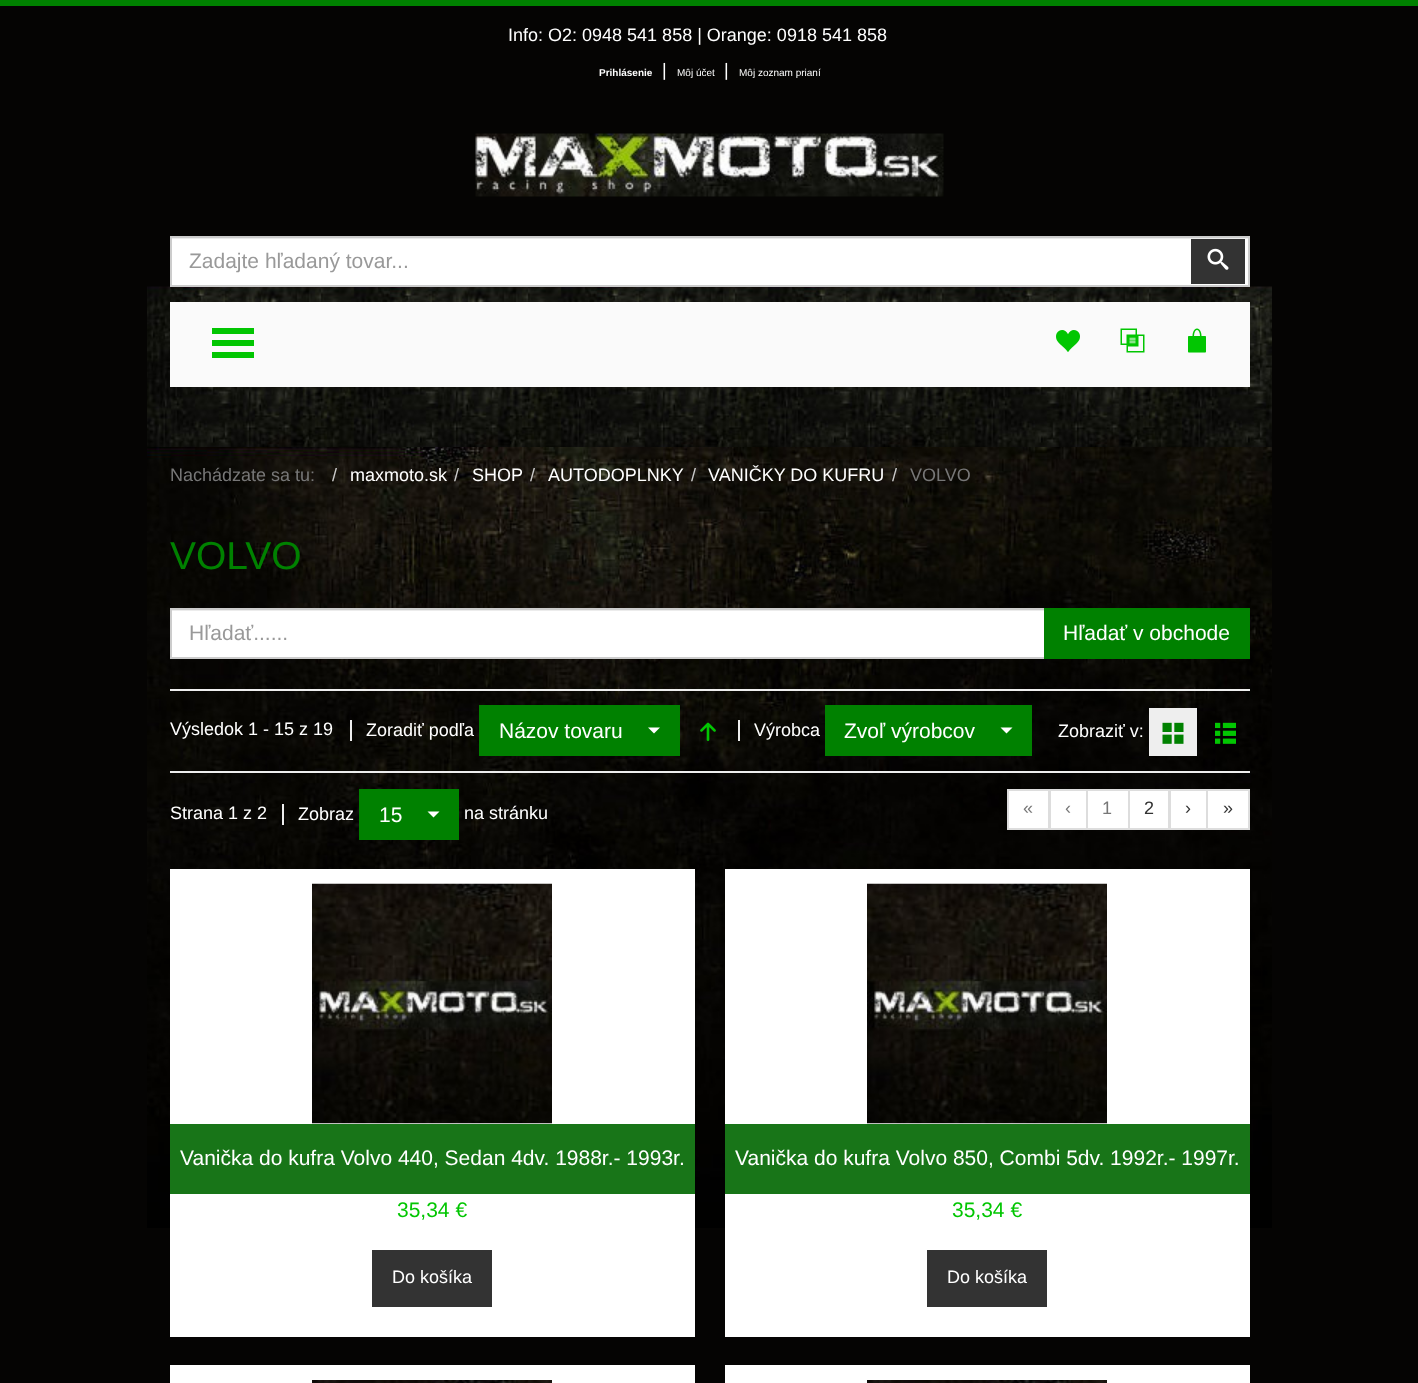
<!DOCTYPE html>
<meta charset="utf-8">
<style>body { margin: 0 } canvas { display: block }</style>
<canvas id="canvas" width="1418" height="1383"></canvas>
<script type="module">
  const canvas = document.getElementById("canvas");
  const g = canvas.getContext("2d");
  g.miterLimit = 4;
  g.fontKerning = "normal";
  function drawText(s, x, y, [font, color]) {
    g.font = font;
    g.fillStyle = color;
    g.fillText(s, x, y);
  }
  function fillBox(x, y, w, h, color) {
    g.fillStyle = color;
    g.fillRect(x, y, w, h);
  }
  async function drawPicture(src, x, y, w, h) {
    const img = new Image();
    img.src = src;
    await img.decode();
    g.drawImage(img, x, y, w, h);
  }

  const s1 = ["18px Liberation Sans", "#FFFFFF"];
  const s2 = ["bold 10px Liberation Sans", "#FFFFFF"];
  const s3 = ["10px Liberation Sans", "#FFFFFF"];
  const s4 = ["21px Liberation Sans", "#999999"];
  const s5 = ["18px Liberation Sans", "#777777"];
  const s6 = ["18px Liberation Sans", "#CCCCCC"];
  const s7 = ["39px Liberation Sans", "#008100"];
  const s8 = ["21px Liberation Sans", "#FFFFFF"];
  const s9 = ["18px Liberation Sans", "#333333"];
  const s10 = ["21px Liberation Sans", "#02C602"];

  fillBox(0, 0, 1418, 1383, "#050403");
  fillBox(0, 0, 1418, 6, "#008100");
  drawText("Info: O2: 0948 541 858 | Orange: 0918 541 858", 508, 41, s1);
  drawText("Prihlásenie", 599, 76, s2);
  drawText("|", 662, 76, s1);
  drawText("Môj účet", 677, 76, s3);
  drawText("|", 724, 76, s1);
  drawText("Môj zoznam prianí", 739, 76, s3);
  await drawPicture("pic1.png", 147, 286, 1125, 161);
  await drawPicture("pic2.png", 475, 133, 469, 64);
  fillBox(172, 239, 1076, 46, "#FFFFFF");
  fillBox(171, 238, 1077, 1, "#ECECEC");
  g.strokeStyle = "#CCCCCC";
  g.lineWidth = 2;
  g.strokeRect(171, 237, 1078, 49);
  drawText("Zadajte hľadaný tovar...", 189, 268, s4);
  fillBox(1191, 239, 54, 45, "#333333");
  await drawPicture("pic3.png", 1207, 248, 22, 22);
  fillBox(170, 302, 1080, 85, "#FAFAFA");
  g.fillStyle = "#02C602";
  g.beginPath();
  g.moveTo(212, 328);
  g.lineTo(254, 328);
  g.lineTo(254, 334);
  g.lineTo(212, 334);
  g.closePath();
  g.moveTo(212, 340);
  g.lineTo(254, 340);
  g.lineTo(254, 346);
  g.lineTo(212, 346);
  g.closePath();
  g.moveTo(212, 352);
  g.lineTo(254, 352);
  g.lineTo(254, 358);
  g.lineTo(212, 358);
  g.closePath();
  g.fill();
  await drawPicture("pic4.png", 1056, 330, 24, 22);
  await drawPicture("pic5.png", 1120, 328, 25, 25);
  await drawPicture("pic6.png", 1188, 328, 18, 25);
  await drawPicture("pic7.png", 147, 447, 1125, 781);
  drawText("Nachádzate sa tu:", 170, 481, s5);
  drawText("/", 332, 481, s6);
  drawText("maxmoto.sk", 350, 481, s1);
  drawText("/", 454, 481, s6);
  drawText("SHOP", 472, 481, s1);
  drawText("/", 530, 481, s6);
  drawText("AUTODOPLNKY", 548, 481, s1);
  drawText("/", 691, 481, s6);
  drawText("VANIČKY DO KUFRU", 708, 481, s1);
  drawText("/", 892, 481, s6);
  drawText("VOLVO", 910, 481, s5);
  drawText("VOLVO", 170, 569, s7);
  fillBox(172, 611, 872, 46, "#FFFFFF");
  fillBox(171, 610, 873, 1, "#ECECEC");
  g.strokeRect(171, 609, 874, 49);
  drawText("Hľadať......", 189, 640, s4);
  fillBox(1044, 608, 206, 51, "#008100");
  drawText("Hľadať v obchode", 1063, 640, s8);
  fillBox(170, 689, 1080, 2, "#EEEEEE");
  fillBox(170, 771, 1080, 2, "#EEEEEE");
  drawText("Výsledok 1 - 15 z 19", 170, 735, s1);
  fillBox(350, 720, 2, 21, "#EEEEEE");
  drawText("Zoradiť podľa", 366, 736, s1);
  fillBox(479, 705, 201, 51, "#008100");
  drawText("Názov tovaru", 499, 738, s8);
  g.beginPath();
  g.moveTo(648, 727.5);
  g.lineTo(660, 727.5);
  g.lineTo(654, 733.5);
  g.closePath();
  g.fill();
  await drawPicture("pic8.png", 700, 722, 16, 19);
  fillBox(738, 720, 2, 21, "#EEEEEE");
  drawText("Výrobca", 754, 736, s1);
  fillBox(825, 705, 207, 51, "#008100");
  drawText("Zvoľ výrobcov", 844, 738, s8);
  g.beginPath();
  g.moveTo(1000.5, 727.5);
  g.lineTo(1012.5, 727.5);
  g.lineTo(1006.5, 733.5);
  g.closePath();
  g.fill();
  drawText("Zobraziť v:", 1058, 737, s1);
  fillBox(1149, 708, 48, 48, "#EEEEEE");
  await drawPicture("pic9.png", 1162, 722, 22, 22);
  await drawPicture("pic10.png", 1215, 722, 21, 22);
  drawText("Strana 1 z 2", 170, 819, s1);
  fillBox(282, 804, 2, 21, "#EEEEEE");
  drawText("Zobraz", 298, 820, s1);
  fillBox(359, 789, 100, 51, "#008100");
  drawText("15", 379, 822, s8);
  g.beginPath();
  g.moveTo(427.5, 811.5);
  g.lineTo(439.5, 811.5);
  g.lineTo(433.5, 817.5);
  g.closePath();
  g.fill();
  drawText("na stránku", 464, 819, s1);
  g.beginPath();
  g.rect(1008, 790, 41, 39);
  g.fill();
  g.strokeStyle = "#DDDDDD";
  g.stroke();
  drawText("«", 1023, 814, s5);
  g.fillStyle = "#FFFFFF";
  g.beginPath();
  g.rect(1050, 790, 37, 39);
  g.fill();
  g.stroke();
  drawText("‹", 1065, 814, s5);
  g.fillStyle = "#FFFFFF";
  g.beginPath();
  g.rect(1087, 790, 42, 39);
  g.fill();
  g.stroke();
  drawText("1", 1102, 814, s5);
  g.fillStyle = "#FFFFFF";
  g.beginPath();
  g.rect(1129, 790, 40, 39);
  g.fill();
  g.stroke();
  drawText("2", 1144, 814, s9);
  g.fillStyle = "#FFFFFF";
  g.beginPath();
  g.rect(1170, 790, 37, 39);
  g.fill();
  g.stroke();
  drawText("›", 1185, 814, s9);
  g.fillStyle = "#FFFFFF";
  g.beginPath();
  g.rect(1207, 790, 42, 39);
  g.fill();
  g.stroke();
  drawText("»", 1223, 814, s9);
  fillBox(170, 869, 525, 468, "#FFFFFF");
  await drawPicture("pic11.png", 312, 883, 240, 241);
  fillBox(170, 1124, 525, 70, "#187518");
  drawText("Vanička do kufra Volvo 440, Sedan 4dv. 1988r.- 1993r.", 180, 1165, s8);
  drawText("35,34 €", 397, 1217, s10);
  fillBox(372, 1250, 120, 57, "#333333");
  drawText("Do košíka", 392, 1283, s1);
  fillBox(725, 869, 525, 468, "#FFFFFF");
  await drawPicture("pic12.png", 867, 883, 240, 241);
  fillBox(725, 1124, 525, 70, "#187518");
  drawText("Vanička do kufra Volvo 850, Combi 5dv. 1992r.- 1997r.", 735, 1165, s8);
  drawText("35,34 €", 952, 1217, s10);
  fillBox(927, 1250, 120, 57, "#333333");
  drawText("Do košíka", 947, 1283, s1);
  fillBox(170, 1365, 525, 18, "#FFFFFF");
  await drawPicture("pic13.png", 312, 1380, 240, 3);
  fillBox(725, 1365, 525, 18, "#FFFFFF");
  await drawPicture("pic14.png", 867, 1380, 240, 3);
</script>
